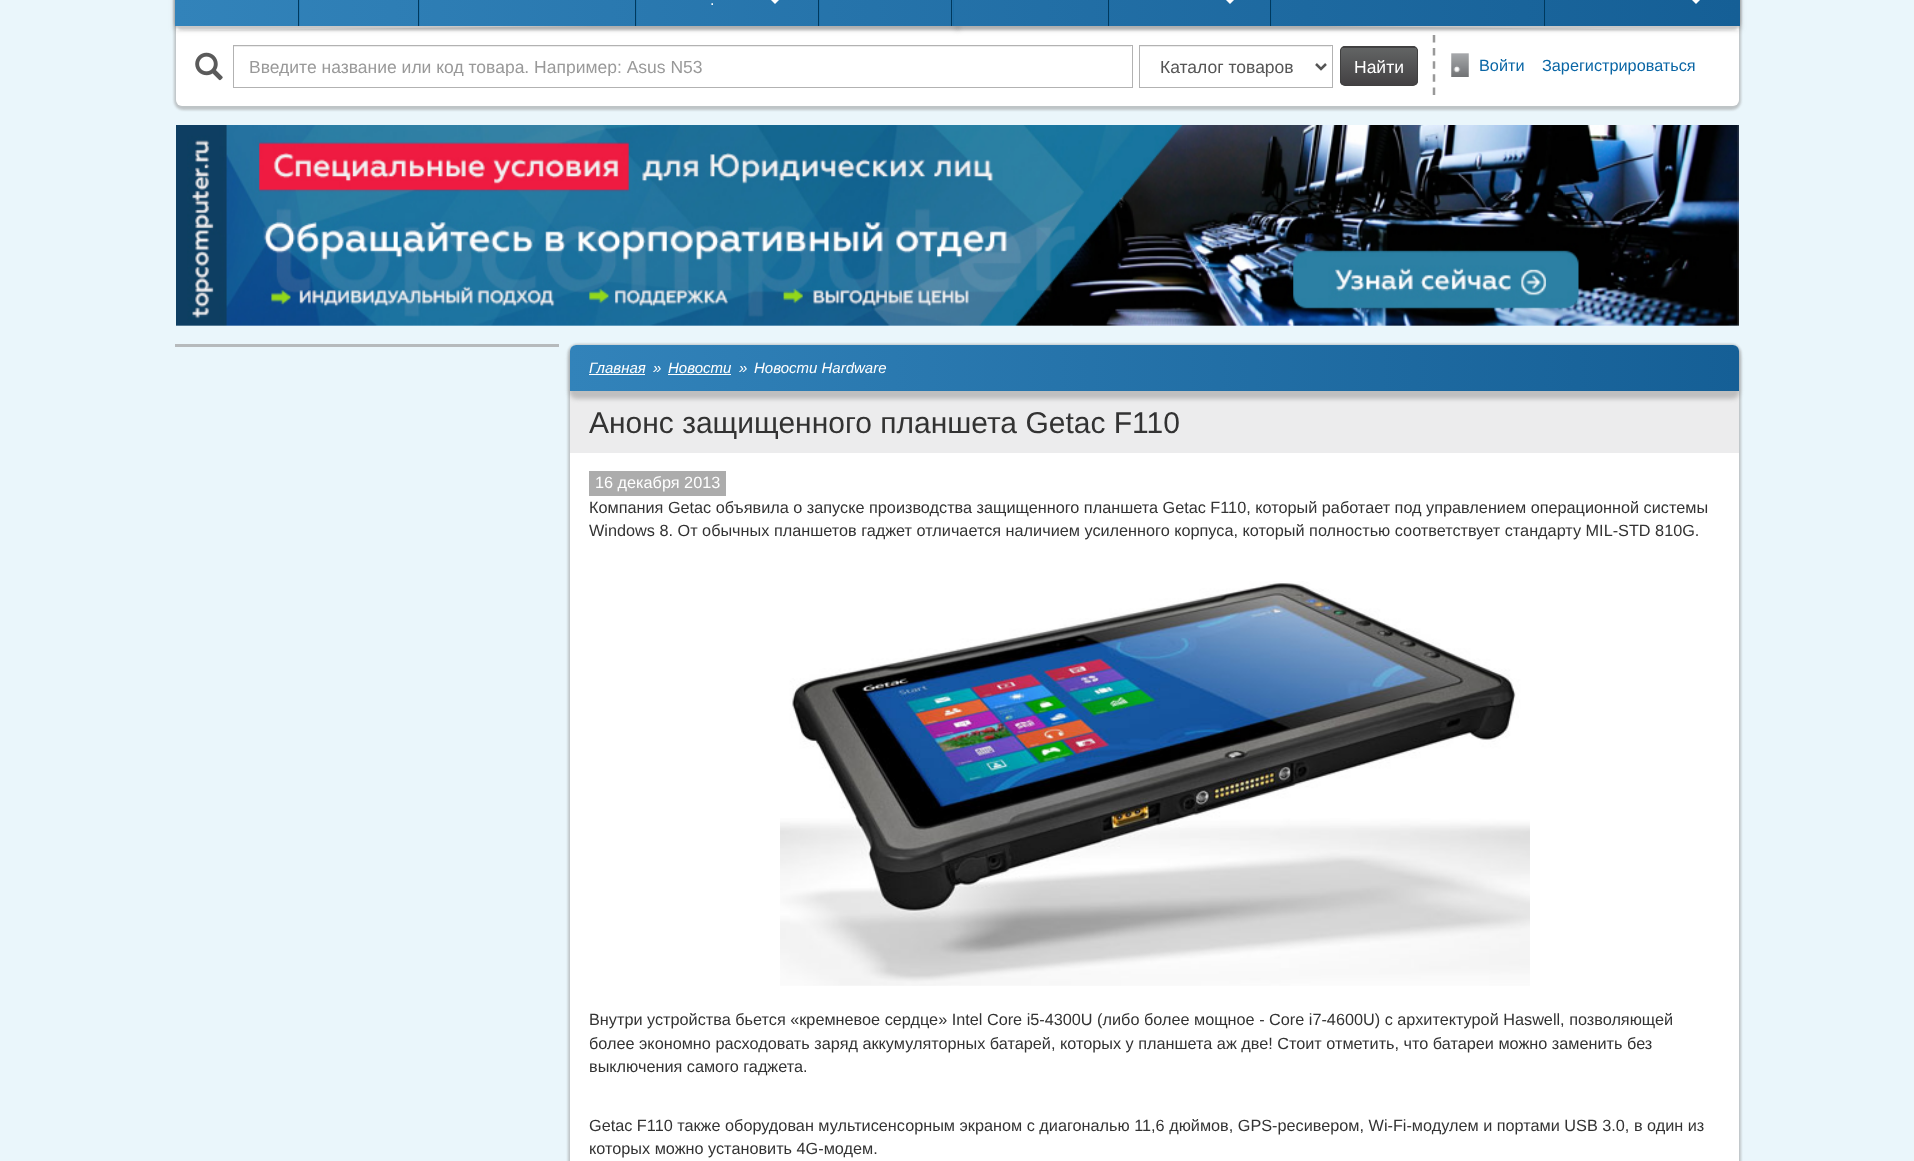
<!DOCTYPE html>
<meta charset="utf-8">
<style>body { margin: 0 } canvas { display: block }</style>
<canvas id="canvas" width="1914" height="1161"></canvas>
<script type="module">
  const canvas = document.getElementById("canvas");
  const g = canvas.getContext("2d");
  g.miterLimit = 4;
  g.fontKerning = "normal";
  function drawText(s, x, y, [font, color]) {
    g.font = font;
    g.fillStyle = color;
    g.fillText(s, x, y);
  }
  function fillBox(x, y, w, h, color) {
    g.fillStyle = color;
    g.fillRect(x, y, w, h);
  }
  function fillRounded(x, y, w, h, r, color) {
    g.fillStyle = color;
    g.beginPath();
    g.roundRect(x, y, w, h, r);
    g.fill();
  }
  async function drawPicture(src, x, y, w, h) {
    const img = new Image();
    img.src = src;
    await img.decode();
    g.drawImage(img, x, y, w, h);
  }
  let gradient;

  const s1 = ["16.25px Liberation Sans", "#FFFFFF"];
  const s2 = ["17.5px Liberation Sans", "#999999"];
  const s3 = ["17.5px Liberation Sans", "#555555"];
  const s4 = ["17.5px Liberation Sans", "#FFFFFF"];
  const s5 = ["16.25px Liberation Sans", "#0A66A5"];
  const s6 = ["italic 15px Liberation Sans", "#FFFFFF"];
  const s7 = ["30px Liberation Sans", "#333333"];
  const s8 = ["16.25px Liberation Sans", "#333333"];

  fillBox(0, 0, 1914, 1161, "#EAF6FB");
  g.fillStyle = "rgba(146, 146, 146, 0.5)";
  g.filter = "blur(1px)";
  g.beginPath();
  g.roundRect(174, -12, 1567, 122, 9);
  g.fill();
  g.filter = "none";
  fillRounded(176, -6, 1563, 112, 6, "#FFFFFF");
  g.fillStyle = "rgba(146, 146, 146, 0.5)";
  g.filter = "blur(1px)";
  g.beginPath();
  g.roundRect(174, -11, 1567, 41, 8);
  g.fill();
  g.filter = "none";
  g.save();
  g.beginPath();
  g.moveTo(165, 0);
  g.lineTo(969, 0);
  g.lineTo(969, 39);
  g.lineTo(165, 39);
  g.closePath();
  g.moveTo(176, 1.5);
  g.lineTo(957, -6.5);
  g.lineTo(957.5, 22);
  g.lineTo(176.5, 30.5);
  g.closePath();
  g.clip("evenodd");
  g.fillStyle = "rgba(114, 114, 114, 0.3)";
  g.filter = "blur(2.5px)";
  g.beginPath();
  g.rect(174, -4, 786, 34);
  g.fill();
  g.filter = "none";
  g.restore();
  g.beginPath();
  g.moveTo(1434, 35);
  g.lineTo(1434, 95);
  g.strokeStyle = "#999999";
  g.lineWidth = 2.5;
  g.setLineDash([7.5, 5.62]);
  g.stroke();
  g.save();
  g.beginPath();
  g.moveTo(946, 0);
  g.lineTo(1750, 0);
  g.lineTo(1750, 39);
  g.lineTo(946, 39);
  g.closePath();
  g.moveTo(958, -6.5);
  g.lineTo(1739, 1.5);
  g.lineTo(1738.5, 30.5);
  g.lineTo(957.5, 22);
  g.closePath();
  g.clip("evenodd");
  g.fillStyle = "rgba(114, 114, 114, 0.3)";
  g.filter = "blur(2.5px)";
  g.beginPath();
  g.rect(955, -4, 786, 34);
  g.fill();
  g.filter = "none";
  g.restore();
  gradient = g.createLinearGradient(175, 0, 1740, 0);
  gradient.addColorStop(0, "#3283BA");
  gradient.addColorStop(1, "#155F96");
  g.fillStyle = gradient;
  g.fillRect(175, 0, 1565, 26);
  fillBox(298, 0, 1, 26, "#00395E");
  fillBox(299, 0, 1, 26, "#2478B1");
  fillBox(418, 0, 1, 26, "#00395E");
  fillBox(419, 0, 1, 26, "#2276AF");
  fillBox(635, 0, 1, 26, "#00395E");
  fillBox(636, 0, 1, 26, "#1F73AC");
  fillBox(818, 0, 1, 26, "#00395E");
  drawText(".", 710, 5, s1);
  g.beginPath();
  g.moveTo(770, -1);
  g.lineTo(780, -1);
  g.lineTo(775, 4);
  g.closePath();
  g.fill();
  fillBox(819, 0, 1, 26, "#1D70A9");
  fillBox(951, 0, 1, 26, "#00395E");
  fillBox(953, 0, 1, 26, "#1C6EA7");
  fillBox(1108, 0, 1, 26, "#00395E");
  fillBox(1109, 0, 1, 26, "#1A6CA5");
  fillBox(1270, 0, 1, 26, "#00395E");
  g.fillStyle = "#FFFFFF";
  g.beginPath();
  g.moveTo(1225, -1);
  g.lineTo(1235, -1);
  g.lineTo(1230, 4);
  g.closePath();
  g.fill();
  fillBox(1271, 0, 1, 26, "#1869A2");
  fillBox(1544, 0, 1, 26, "#00395E");
  fillBox(1545, 0, 1, 26, "#14649D");
  g.fillStyle = "#FFFFFF";
  g.beginPath();
  g.moveTo(1691, -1);
  g.lineTo(1701, -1);
  g.lineTo(1696, 4);
  g.closePath();
  g.fill();
  await drawPicture("pic1.png", 195, 52, 28, 29);
  fillBox(234, 46, 897, 1, "#ECECEC");
  g.strokeStyle = "#B2B2B2";
  g.lineWidth = 1;
  g.setLineDash([]);
  g.strokeRect(233.5, 45.5, 899, 42);
  g.save();
  g.beginPath();
  g.rect(249, 56, 867, 20);
  g.clip();
  drawText("Введите название или код товара. Например: Asus N53", 249, 73, s2);
  g.restore();
  fillBox(1140, 46, 191, 1, "#ECECEC");
  g.strokeRect(1139.5, 45.5, 193, 42);
  g.beginPath();
  g.moveTo(1316, 64);
  g.lineTo(1321, 69);
  g.lineTo(1326, 64);
  g.strokeStyle = "#555555";
  g.lineWidth = 2.5;
  g.stroke();
  drawText("Каталог товаров", 1160, 73, s3);
  g.save();
  g.beginPath();
  g.roundRect(1340, 46, 78, 40, 5);
  g.clip();
  gradient = g.createLinearGradient(1379, 48, 1379, 10);
  gradient.addColorStop(0, "#434143");
  gradient.addColorStop(1, "#626464");
  g.fillStyle = gradient;
  g.fillRect(1340, 46, 78, 2);
  gradient = g.createLinearGradient(1379, 85, 1379, 48);
  gradient.addColorStop(0, "#434143");
  gradient.addColorStop(1, "#626464");
  g.fillStyle = gradient;
  g.fillRect(1340, 48, 78, 37);
  g.restore();
  g.beginPath();
  g.roundRect(1340.5, 46.5, 77, 39, 4.5);
  g.strokeStyle = "#404040";
  g.lineWidth = 1;
  g.stroke();
  drawText("Найти", 1354, 73, s4);
  await drawPicture("pic2.png", 1451, 53, 18, 24);
  drawText("Войти", 1479, 71, s5);
  drawText("Зарегистрироваться", 1542, 71, s5);
  await drawPicture("pic3.png", 176, 125, 1563, 201);
  g.fillStyle = "rgba(146, 146, 146, 0.6)";
  g.filter = "blur(0.5px)";
  g.beginPath();
  g.rect(175, 344, 384, 3);
  g.fill();
  g.filter = "none";
  g.fillStyle = "rgba(146, 146, 146, 0.5)";
  g.filter = "blur(1px)";
  g.beginPath();
  g.roundRect(568, 344, 1173, 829, 9);
  g.fill();
  g.filter = "none";
  fillRounded(570, 345, 1169, 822, 6, "#FFFFFF");
  fillBox(570, 391, 1169, 62, "#ECECED");
  g.fillStyle = "rgba(146, 146, 146, 0.5)";
  g.filter = "blur(2px)";
  g.beginPath();
  g.roundRect(569, 350, 1171, 49, 8);
  g.fill();
  g.filter = "none";
  gradient = g.createLinearGradient(570, 368, 1739, 368);
  gradient.addColorStop(0, "#3283BA");
  gradient.addColorStop(1, "#155F96");
  g.fillStyle = gradient;
  g.beginPath();
  g.roundRect(570, 345, 1169, 46, [6, 6, 0, 0]);
  g.fill();
  drawText("Главная", 589, 373, s6);
  fillBox(589, 374, 56, 1, "#FFFFFF");
  drawText("»", 653, 373, s6);
  drawText("Новости", 668, 373, s6);
  fillBox(668, 374, 63, 1, "#FFFFFF");
  drawText("»", 739, 373, s6);
  drawText("Новости Hardware", 754, 373, s6);
  drawText("Анонс защищенного планшета Getac F110", 589, 433, s7);
  fillBox(589, 471, 137, 25, "#ACACAC");
  drawText("16 декабря 2013", 595, 488, s1);
  drawText("Компания Getac объявила о запуске производства защищенного планшета Getac F110, который работает под управлением операционной системы", 589, 513, s8);
  drawText("Windows 8. От обычных планшетов гаджет отличается наличием усиленного корпуса, который полностью соответствует стандарту MIL-STD 810G.", 589, 536, s8);
  await drawPicture("pic4.png", 780, 581, 750, 405);
  drawText("Внутри устройства бьется «кремневое сердце» Intel Core i5-4300U (либо более мощное - Core i7-4600U) с архитектурой Haswell, позволяющей", 589, 1025, s8);
  drawText("более экономно расходовать заряд аккумуляторных батарей, которых у планшета аж две! Стоит отметить, что батареи можно заменить без", 589, 1049, s8);
  drawText("выключения самого гаджета.", 589, 1072, s8);
  drawText("Getac F110 также оборудован мультисенсорным экраном с диагональю 11,6 дюймов, GPS-ресивером, Wi-Fi-модулем и портами USB 3.0, в один из", 589, 1131, s8);
  drawText("которых можно установить 4G-модем.", 589, 1154, s8);
</script>
